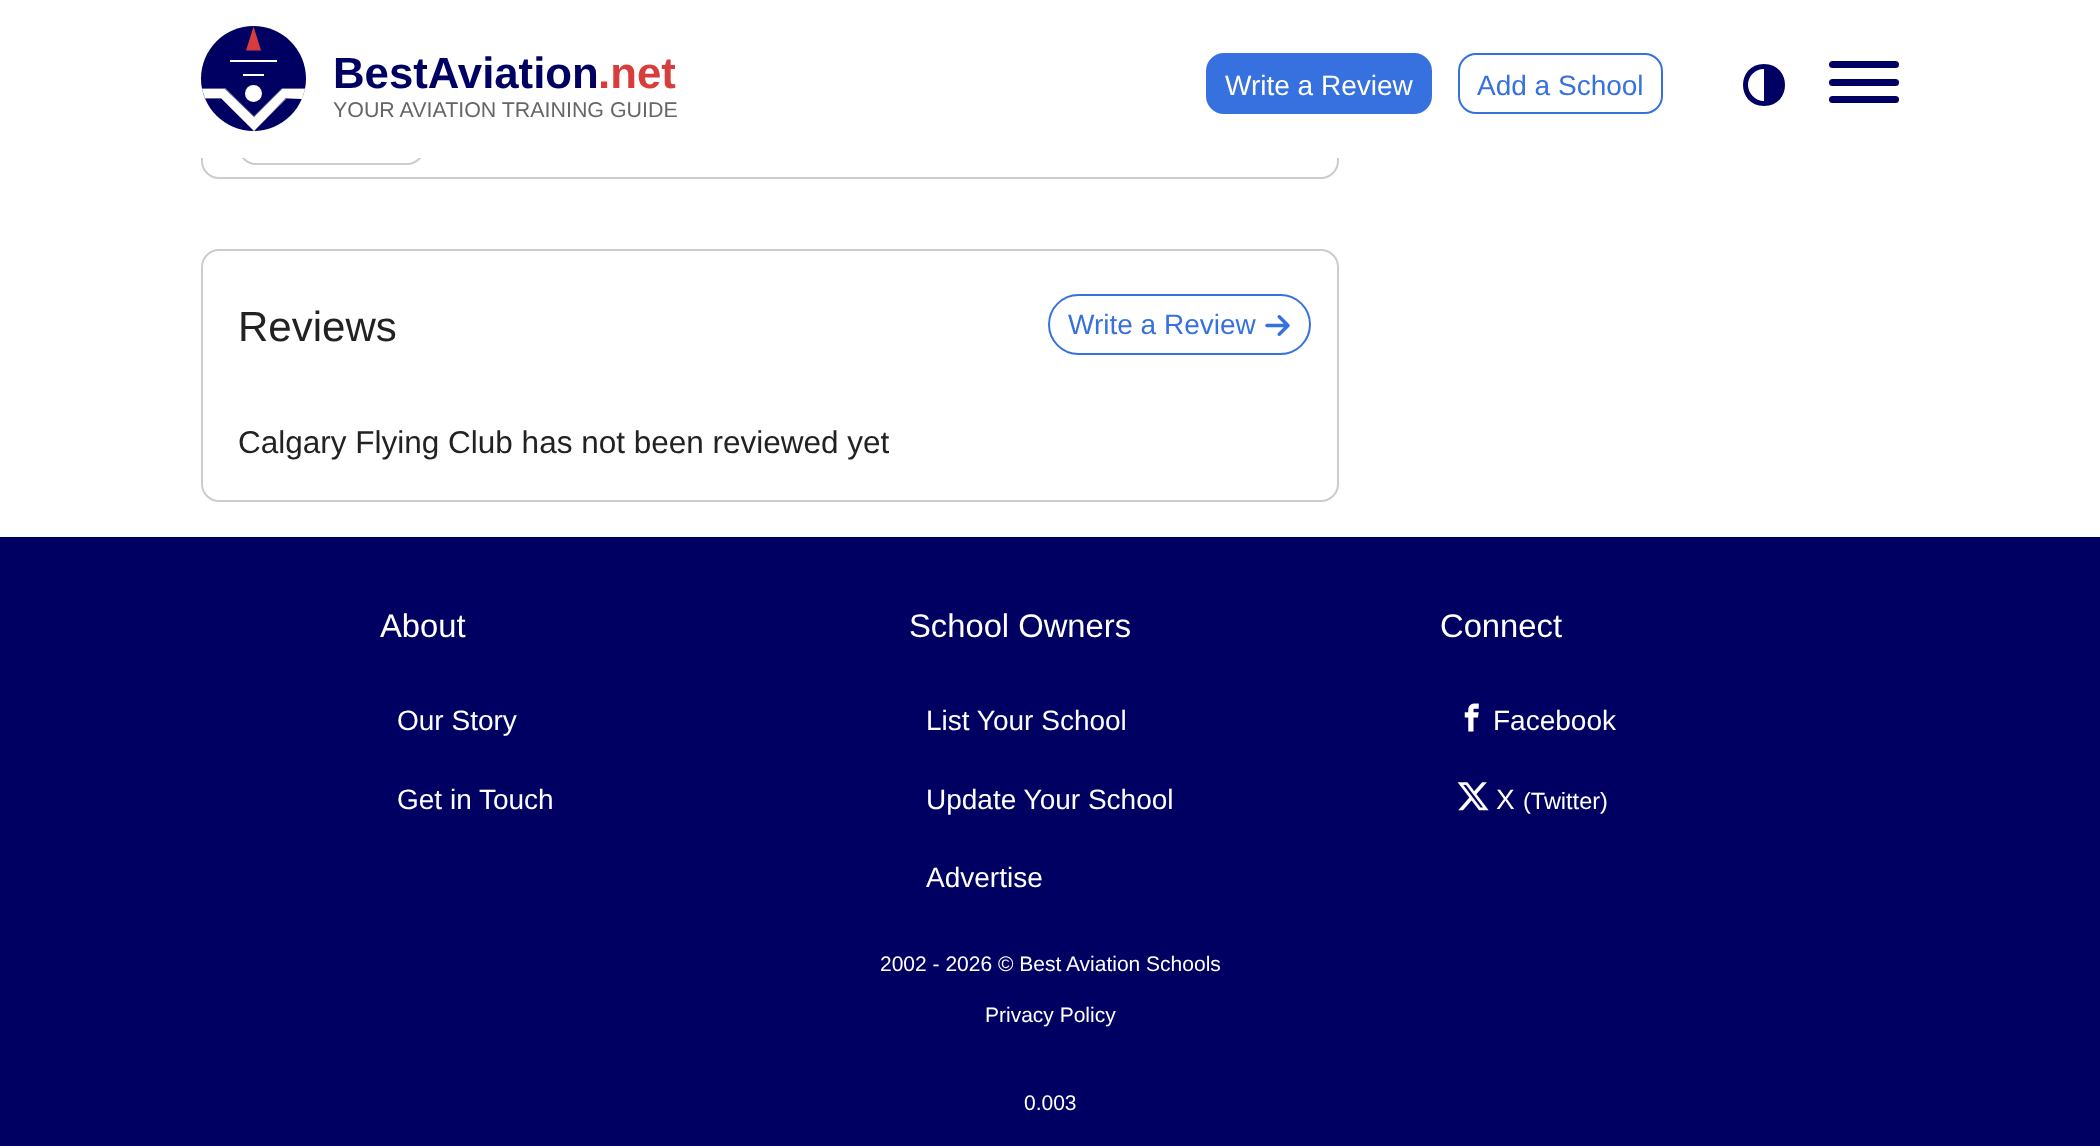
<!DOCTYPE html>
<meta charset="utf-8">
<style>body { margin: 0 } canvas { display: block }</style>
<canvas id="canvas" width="2100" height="1146"></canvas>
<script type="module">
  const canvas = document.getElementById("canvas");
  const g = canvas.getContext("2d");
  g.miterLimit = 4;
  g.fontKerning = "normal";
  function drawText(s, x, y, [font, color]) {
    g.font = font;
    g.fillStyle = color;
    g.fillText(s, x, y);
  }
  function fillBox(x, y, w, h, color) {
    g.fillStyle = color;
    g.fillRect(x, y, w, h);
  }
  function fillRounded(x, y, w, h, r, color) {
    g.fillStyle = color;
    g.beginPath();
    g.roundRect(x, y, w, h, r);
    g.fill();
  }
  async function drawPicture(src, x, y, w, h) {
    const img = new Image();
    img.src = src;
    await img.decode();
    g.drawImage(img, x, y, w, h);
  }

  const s1 = ["bold 43.75px Liberation Sans", "#000062"];
  const s2 = ["bold 43.75px Liberation Sans", "#D83D3D"];
  const s3 = ["21.4px Liberation Sans", "#666666"];
  const s4 = ["28px Liberation Sans", "#FFFFFF"];
  const s5 = ["28px Liberation Sans", "#3771DF"];
  const s6 = ["42px Liberation Sans", "#222222"];
  const s7 = ["31.5px Liberation Sans", "#222222"];
  const s8 = ["32.75px Liberation Sans", "#FFFFFF"];
  const s9 = ["23.5px Liberation Sans", "#FFFFFF"];
  const s10 = ["21px Liberation Sans", "#FFFFFF"];

  fillBox(0, 0, 2100, 1146, "#FFFFFF");
  g.beginPath();
  g.roundRect(202, -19, 1136, 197, 17);
  g.strokeStyle = "#CCCCCC";
  g.lineWidth = 2;
  g.stroke();
  g.beginPath();
  g.roundRect(239, 99, 185, 65, 17);
  g.stroke();
  fillBox(201, 0, 1138, 158, "#FFFFFF");
  g.fillStyle = "#000062";
  g.beginPath();
  g.arc(253.5, 78.5, 52.5, 0, Math.PI * 2);
  g.fill();
  g.fillStyle = "#FFFFFF";
  g.beginPath();
  g.moveTo(205, 98);
  g.lineTo(221, 98);
  g.lineTo(254, 131);
  g.lineTo(286, 98);
  g.lineTo(302, 99);
  g.lineTo(305, 89);
  g.lineTo(282, 89);
  g.lineTo(254, 117);
  g.lineTo(225, 89);
  g.lineTo(202, 89);
  g.closePath();
  g.fill();
  g.beginPath();
  g.moveTo(205, 98.5);
  g.lineTo(221.5, 98.5);
  g.lineTo(254, 130.5);
  g.lineTo(286.5, 98.5);
  g.lineTo(302, 98.5);
  g.lineTo(305, 88.5);
  g.lineTo(282, 88.5);
  g.lineTo(254, 116.5);
  g.lineTo(225.5, 88.5);
  g.lineTo(202.5, 88.5);
  g.closePath();
  g.strokeStyle = "#FFFFFF";
  g.lineWidth = 0.4;
  g.stroke();
  g.fillStyle = "#D83D3D";
  g.beginPath();
  g.moveTo(253.5, 26.5);
  g.lineTo(261, 50.5);
  g.lineTo(246, 50.5);
  g.closePath();
  g.fill();
  g.fillStyle = "#FFFFFF";
  g.beginPath();
  g.arc(253.5, 93.5, 8.5, 0, Math.PI * 2);
  g.fill();
  fillBox(230, 60, 47, 2, "#FFFFFF");
  fillBox(243, 74, 21, 2, "#FFFFFF");
  drawText("BestAviation", 333, 88, s1);
  drawText(".net", 598, 88, s2);
  drawText("YOUR AVIATION TRAINING GUIDE", 333, 117, s3);
  g.fillStyle = "#3771DF";
  g.beginPath();
  g.roundRect(1207, 54, 224, 59, 17);
  g.fill();
  g.strokeStyle = "#3771DF";
  g.lineWidth = 2;
  g.stroke();
  drawText("Write a Review", 1225, 95, s4);
  g.beginPath();
  g.roundRect(1459, 54, 203, 59, 17);
  g.stroke();
  drawText("Add a School", 1477, 95, s5);
  g.fillStyle = "#000062";
  g.beginPath();
  g.moveTo(1764, 64);
  g.bezierCurveTo(1736, 64, 1736, 106, 1764, 106);
  g.bezierCurveTo(1792, 106, 1792, 64, 1764, 64);
  g.closePath();
  g.moveTo(1748, 85);
  g.bezierCurveTo(1748, 76, 1755, 69, 1764, 69);
  g.lineTo(1764, 101);
  g.bezierCurveTo(1755, 101, 1748, 93, 1748, 85);
  g.closePath();
  g.fill();
  fillRounded(1829, 79, 70, 7, 3.5, "#000062");
  fillRounded(1829, 61, 70, 7, 3.5, "#000062");
  fillRounded(1829, 96, 70, 7, 3.5, "#000062");
  g.beginPath();
  g.roundRect(202, 250, 1136, 251, 17);
  g.strokeStyle = "#CCCCCC";
  g.stroke();
  drawText("Reviews", 238, 341, s6);
  g.beginPath();
  g.roundRect(1049, 295, 261, 59, 29.5);
  g.strokeStyle = "#3771DF";
  g.stroke();
  drawText("Write a Review", 1068, 334, s5);
  await drawPicture("pic1.png", 1265, 315, 25, 21);
  drawText("Calgary Flying Club has not been reviewed yet", 238, 453, s7);
  fillBox(0, 537, 2100, 609, "#000062");
  drawText("About", 380, 637, s8);
  drawText("Our Story", 397, 730, s4);
  drawText("Get in Touch", 397, 809, s4);
  drawText("School Owners", 909, 637, s8);
  drawText("List Your School", 926, 730, s4);
  drawText("Update Your School", 926, 809, s4);
  drawText("Advertise", 926, 887, s4);
  drawText("Connect", 1440, 637, s8);
  await drawPicture("pic2.png", 1464, 703, 15, 29);
  drawText("Facebook", 1493, 730, s4);
  await drawPicture("pic3.png", 1457, 782, 32, 29);
  drawText("X", 1496, 809, s4);
  drawText("(Twitter)", 1523, 809, s9);
  drawText("2002 - 2026 © Best Aviation Schools", 880, 971, s10);
  drawText("Privacy Policy", 985, 1022, s10);
  drawText("0.003", 1024, 1110, s10);
</script>
